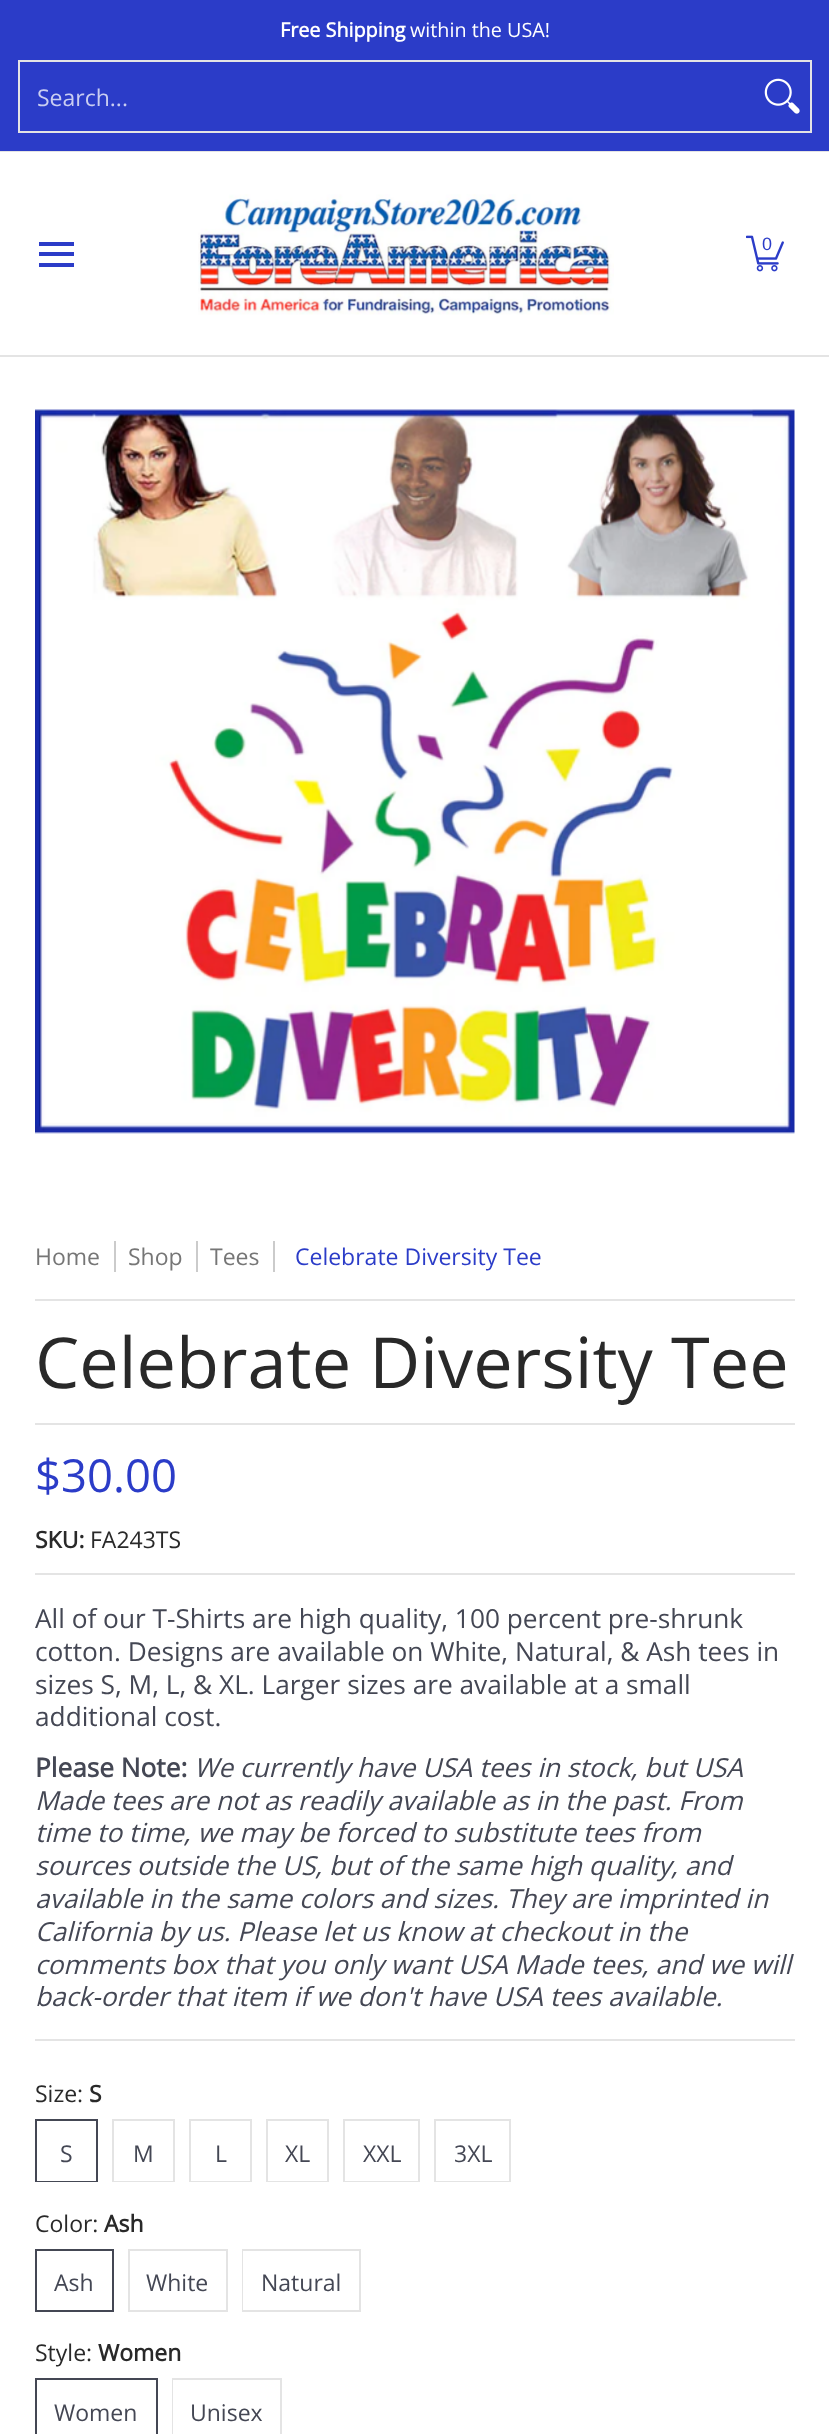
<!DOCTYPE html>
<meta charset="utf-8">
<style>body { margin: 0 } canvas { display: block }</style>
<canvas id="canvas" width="829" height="2434"></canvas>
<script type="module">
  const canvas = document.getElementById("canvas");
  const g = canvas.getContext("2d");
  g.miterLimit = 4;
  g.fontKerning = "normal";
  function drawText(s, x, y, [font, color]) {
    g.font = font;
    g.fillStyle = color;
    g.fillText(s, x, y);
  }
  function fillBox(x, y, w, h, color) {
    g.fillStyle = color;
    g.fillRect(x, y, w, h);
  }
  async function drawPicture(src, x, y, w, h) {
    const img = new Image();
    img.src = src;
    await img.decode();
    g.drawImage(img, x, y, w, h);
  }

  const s1 = ["bold 19.75px Open Sans", "#FFFFFF"];
  const s2 = ["19.75px Open Sans", "#FFFFFF"];
  const s3 = ["23px Open Sans", "#CACEF1"];
  const s4 = ["18px Liberation Sans", "#2B3CC8"];
  const s5 = ["23px Open Sans", "#767676"];
  const s6 = ["23px Open Sans", "#2B3CC8"];
  const s7 = ["70.25px Open Sans", "#292929"];
  const s8 = ["45.5px Open Sans", "#2B3CC8"];
  const s9 = ["bold 23px Open Sans", "#292929"];
  const s10 = ["23px Open Sans", "#292929"];
  const s11 = ["26.25px Open Sans", "#444754"];
  const s12 = ["bold 26.25px Open Sans", "#444754"];
  const s13 = ["italic 26.25px Open Sans", "#444754"];
  const s14 = ["23px Open Sans", "#444754"];

  fillBox(0, 0, 829, 2434, "#FFFFFF");
  fillBox(0, 0, 829, 151, "#2B3CC8");
  fillBox(0, 151, 829, 1, "#E4E4E4");
  drawText("Free Shipping", 280, 37, s1);
  drawText("within the USA!", 410, 37, s2);
  g.strokeStyle = "#E4E4E4";
  g.lineWidth = 2;
  g.strokeRect(19, 61, 792, 71);
  drawText("Search...", 37, 106, s3);
  await drawPicture("pic1.png", 764, 78, 36, 36);
  fillBox(0, 355, 829, 2, "#E4E4E4");
  fillBox(39, 242, 35, 4, "#2B3CC8");
  fillBox(39, 263, 35, 4, "#2B3CC8");
  fillBox(39, 252, 35, 4, "#2B3CC8");
  await drawPicture("pic2.png", 198, 194, 416, 121);
  await drawPicture("pic3.png", 746, 235, 38, 37);
  drawText("0", 762, 250, s4);
  await drawPicture("pic4.png", 35, 409, 760, 725);
  fillBox(35, 1299, 760, 2, "#E4E4E4");
  drawText("Home", 35, 1265, s5);
  fillBox(114, 1241, 2, 31, "#CBCBCB");
  drawText("Shop", 128, 1265, s5);
  fillBox(196, 1241, 2, 31, "#CBCBCB");
  drawText("Tees", 210, 1265, s5);
  fillBox(273, 1241, 2, 31, "#CBCBCB");
  drawText("Celebrate Diversity Tee", 295, 1265, s6);
  fillBox(35, 1423, 760, 2, "#E4E4E4");
  drawText("Celebrate Diversity Tee", 35, 1388, s7);
  drawText("$30.00", 35, 1492, s8);
  drawText("SKU:", 35, 1548, s9);
  drawText("FA243TS", 90, 1548, s10);
  fillBox(35, 1573, 760, 2, "#E4E4E4");
  drawText("All of our T-Shirts are high quality, 100 percent pre-shrunk", 35, 1628, s11);
  drawText("cotton. Designs are available on White, Natural, & Ash tees in", 35, 1661, s11);
  drawText("sizes S, M, L, & XL. Larger sizes are available at a small", 35, 1694, s11);
  drawText("additional cost.", 35, 1726, s11);
  fillBox(35, 2039, 760, 2, "#E4E4E4");
  drawText("Please Note:", 35, 1777, s12);
  drawText("We currently have USA tees in stock, but USA", 194, 1777, s13);
  drawText("Made tees are not as readily available as in the past. From", 35, 1810, s13);
  drawText("time to time, we may be forced to substitute tees from", 35, 1842, s13);
  drawText("sources outside the US, but of the same high quality, and", 35, 1875, s13);
  drawText("available in the same colors and sizes. They are imprinted in", 35, 1908, s13);
  drawText("California by us. Please let us know at checkout in the", 35, 1941, s13);
  drawText("comments box that you only want USA Made tees, and we will", 35, 1974, s13);
  drawText("back-order that item if we don't have USA tees available.", 35, 2006, s13);
  drawText("Size:", 35, 2102, s10);
  drawText("S", 89, 2102, s9);
  g.strokeStyle = "#444754";
  g.strokeRect(36, 2120, 61, 61);
  g.strokeStyle = "#FFFFFF";
  g.strokeRect(38, 2122, 57, 58);
  drawText("S", 60, 2162, s14);
  g.strokeStyle = "#E4E4E4";
  g.strokeRect(113, 2120, 61, 61);
  g.strokeStyle = "#FFFFFF";
  g.strokeRect(115, 2122, 57, 58);
  drawText("M", 133, 2162, s14);
  g.strokeStyle = "#E4E4E4";
  g.strokeRect(190, 2120, 61, 61);
  g.strokeStyle = "#FFFFFF";
  g.strokeRect(192, 2122, 57, 58);
  drawText("L", 215, 2162, s14);
  g.strokeStyle = "#E4E4E4";
  g.strokeRect(267, 2120, 61, 61);
  g.strokeStyle = "#FFFFFF";
  g.strokeRect(269, 2122, 57, 58);
  drawText("XL", 285, 2162, s14);
  g.strokeStyle = "#E4E4E4";
  g.strokeRect(344, 2120, 75, 61);
  g.strokeStyle = "#FFFFFF";
  g.strokeRect(346, 2122, 71, 58);
  drawText("XXL", 363, 2162, s14);
  g.strokeStyle = "#E4E4E4";
  g.strokeRect(435, 2120, 75, 61);
  g.strokeStyle = "#FFFFFF";
  g.strokeRect(437, 2122, 71, 58);
  drawText("3XL", 454, 2162, s14);
  drawText("Color:", 35, 2232, s10);
  drawText("Ash", 104, 2232, s9);
  g.strokeStyle = "#444754";
  g.strokeRect(36, 2250, 77, 61);
  drawText("Ash", 54, 2291, s14);
  g.strokeStyle = "#E4E4E4";
  g.strokeRect(129, 2250, 98, 61);
  drawText("White", 146, 2291, s14);
  g.strokeRect(243, 2250, 117, 61);
  g.strokeStyle = "#FFFFFF";
  g.strokeRect(244, 2252, 114, 57);
  drawText("Natural", 261, 2291, s14);
  drawText("Style:", 35, 2361, s10);
  drawText("Women", 98, 2361, s9);
  g.strokeStyle = "#444754";
  g.strokeRect(36, 2379, 121, 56);
  drawText("Women", 54, 2421, s14);
  g.strokeStyle = "#E4E4E4";
  g.strokeRect(173, 2379, 108, 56);
  g.strokeStyle = "#FFFFFF";
  g.strokeRect(174, 2381, 105, 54);
  drawText("Unisex", 190, 2421, s14);
</script>
